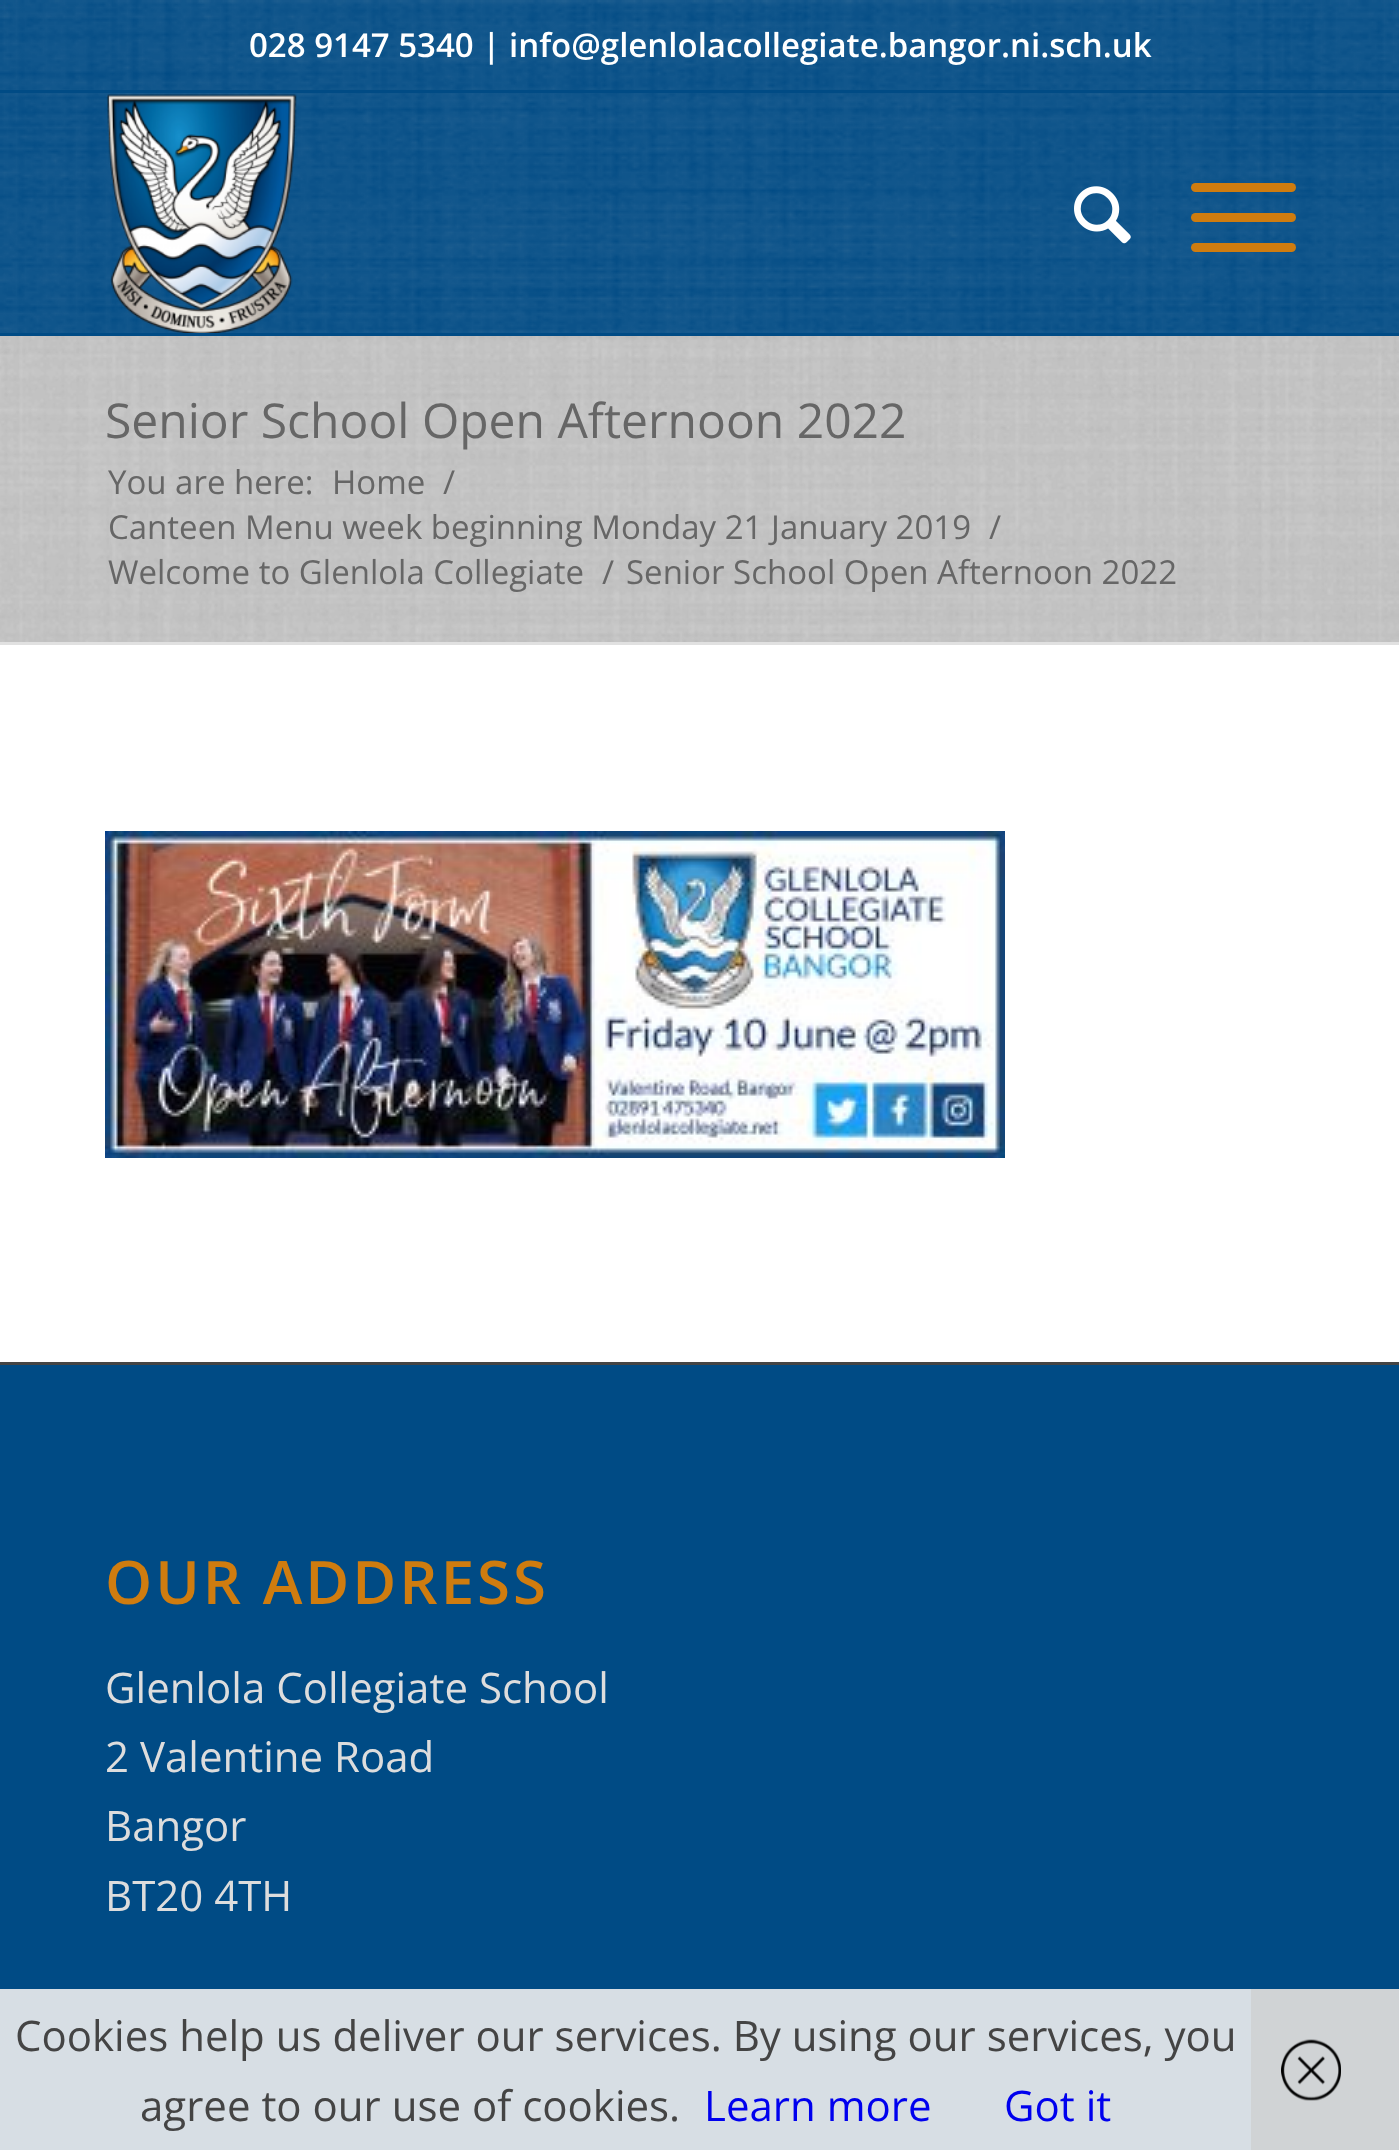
<!DOCTYPE html>
<meta charset="utf-8">
<style>body { margin: 0 } canvas { display: block }</style>
<canvas id="canvas" width="1399" height="2150"></canvas>
<script type="module">
  const canvas = document.getElementById("canvas");
  const g = canvas.getContext("2d");
  g.miterLimit = 4;
  g.fontKerning = "normal";
  function drawText(s, x, y, [font, color]) {
    g.font = font;
    g.fillStyle = color;
    g.fillText(s, x, y);
  }
  function fillBox(x, y, w, h, color) {
    g.fillStyle = color;
    g.fillRect(x, y, w, h);
  }
  function fillRounded(x, y, w, h, r, color) {
    g.fillStyle = color;
    g.beginPath();
    g.roundRect(x, y, w, h, r);
    g.fill();
  }
  async function drawPicture(src, x, y, w, h) {
    const img = new Image();
    img.src = src;
    await img.decode();
    g.drawImage(img, x, y, w, h);
  }

  const s1 = ["600 33px Open Sans", "#FFFFFF"];
  const s2 = ["48px Open Sans", "#666666"];
  const s3 = ["33px Open Sans", "#666666"];
  const s4 = ["600 60px Open Sans", "#CF7C0F"];
  const s5 = ["42px Open Sans", "#DDDDDD"];
  const s6 = ["42px Open Sans", "#444444"];
  const s7 = ["42px Open Sans", "#0000EE"];

  fillBox(0, 0, 1399, 2150, "#CCCCCC");
  fillBox(0, 0, 1399, 336, "#004B85");
  await drawPicture("pic1.png", 0, 0, 1399, 333);
  drawText("028 9147 5340 | info@glenlolacollegiate.bangor.ni.sch.uk", 249, 57, s1);
  fillBox(0, 90, 1399, 3, "#004B85");
  await drawPicture("pic2.png", 106, 94, 191, 239);
  await drawPicture("pic3.png", 1074, 186, 57, 58);
  fillRounded(1191, 213, 105, 9, 4.5, "#CF7C0F");
  fillRounded(1191, 183, 105, 9, 4.5, "#CF7C0F");
  fillRounded(1191, 243, 105, 9, 4.5, "#CF7C0F");
  await drawPicture("pic4.png", 0, 336, 1399, 306);
  drawText("Senior School Open Afternoon 2022", 105, 438, s2);
  drawText("You are here:", 108, 494, s3);
  drawText("Home", 332, 494, s3);
  drawText("/", 443, 494, s3);
  drawText("Canteen Menu week beginning Monday 21 January 2019", 108, 539, s3);
  drawText("/", 989, 539, s3);
  drawText("Welcome to Glenlola Collegiate", 108, 584, s3);
  drawText("/", 602, 584, s3);
  drawText("Senior School Open Afternoon 2022", 626, 584, s3);
  fillBox(0, 645, 1399, 717, "#FFFFFF");
  fillBox(0, 642, 1399, 3, "#E1E1E1");
  await drawPicture("pic5.png", 105, 831, 900, 327);
  fillBox(0, 1365, 1399, 785, "#004B85");
  fillBox(0, 1362, 1399, 3, "#444444");
  g.letterSpacing = "3px";
  drawText("OUR ADDRESS", 105, 1604, s4);
  g.letterSpacing = "0px";
  drawText("Glenlola Collegiate School", 105, 1703, s5);
  drawText("2 Valentine Road", 105, 1772, s5);
  drawText("Bangor", 105, 1841, s5);
  drawText("BT20 4TH", 105, 1911, s5);
  fillBox(0, 1989, 1251, 161, "rgba(238, 238, 238, 0.9)");
  drawText("Cookies help us deliver our services. By using our services, you", 15, 2051, s6);
  drawText("agree to our use of cookies.", 140, 2121, s6);
  drawText("Learn more", 704, 2121, s7);
  drawText("Got it", 1004, 2121, s7);
  fillBox(1251, 1989, 148, 161, "#D0D3D5");
  await drawPicture("pic6.png", 1281, 2039, 60, 62);
</script>
